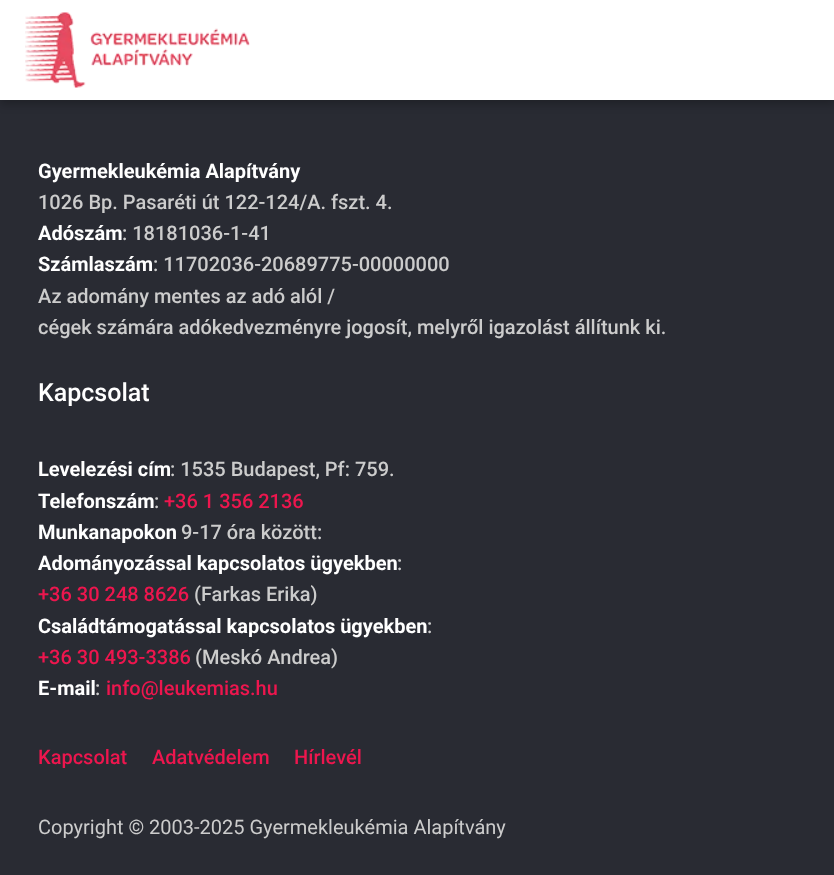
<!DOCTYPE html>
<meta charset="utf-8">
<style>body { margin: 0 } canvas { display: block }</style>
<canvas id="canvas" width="834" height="875"></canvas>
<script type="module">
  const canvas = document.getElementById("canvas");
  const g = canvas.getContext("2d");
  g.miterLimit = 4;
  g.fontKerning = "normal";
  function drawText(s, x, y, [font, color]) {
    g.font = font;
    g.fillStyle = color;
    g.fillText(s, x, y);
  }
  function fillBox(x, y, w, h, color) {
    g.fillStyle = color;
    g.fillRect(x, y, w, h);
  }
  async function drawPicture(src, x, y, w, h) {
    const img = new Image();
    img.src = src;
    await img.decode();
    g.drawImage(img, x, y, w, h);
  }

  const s1 = ["bold 20px Roboto", "#FFFFFF"];
  const s2 = ["500 20px Roboto", "#CCCCCC"];
  const s3 = ["500 25px Roboto", "#FFFFFF"];
  const s4 = ["500 20px Roboto", "#ED164E"];
  const s5 = ["20px Roboto", "#CCCCCC"];

  fillBox(0, 0, 834, 875, "#292B33");
  g.fillStyle = "rgba(0, 0, 0, 0.24)";
  g.filter = "blur(5px)";
  g.beginPath();
  g.rect(0, 4, 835, 100);
  g.fill();
  g.filter = "none";
  fillBox(0, 0, 834, 100, "#FFFFFF");
  await drawPicture("pic1.png", 25, 12, 225, 76);
  drawText("Gyermekleukémia Alapítvány", 38, 178, s1);
  drawText("1026 Bp. Pasaréti út 122-124/A. fszt. 4.", 38, 209, s2);
  drawText("Adószám", 38, 240, s1);
  drawText(": 18181036-1-41", 122, 240, s2);
  drawText("Számlaszám", 38, 271, s1);
  drawText(": 11702036-20689775-00000000", 153, 271, s2);
  drawText("Az adomány mentes az adó alól /", 38, 303, s2);
  drawText("cégek számára adókedvezményre jogosít, melyről igazolást állítunk ki.", 38, 334, s2);
  drawText("Kapcsolat", 38, 401, s3);
  drawText("Levelezési cím", 38, 476, s1);
  drawText(": 1535 Budapest, Pf: 759.", 170, 476, s2);
  drawText("Telefonszám", 38, 508, s1);
  drawText(":", 154, 508, s2);
  drawText("+36 1 356 2136", 164, 508, s4);
  drawText("Munkanapokon", 38, 539, s1);
  drawText("9-17 óra között:", 181, 539, s2);
  drawText("Adományozással kapcsolatos ügyekben", 38, 570, s1);
  drawText(":", 397, 570, s2);
  drawText("+36 30 248 8626", 38, 601, s4);
  drawText("(Farkas Erika)", 194, 601, s2);
  drawText("Családtámogatással kapcsolatos ügyekben", 38, 633, s1);
  drawText(":", 427, 633, s2);
  drawText("+36 30 493-3386", 38, 664, s4);
  drawText("(Meskó Andrea)", 195, 664, s2);
  drawText("E-mail", 38, 695, s1);
  drawText(":", 95, 695, s2);
  drawText("info@leukemias.hu", 106, 695, s4);
  drawText("Kapcsolat", 38, 764, s4);
  drawText("Adatvédelem", 152, 764, s4);
  drawText("Hírlevél", 294, 764, s4);
  drawText("Copyright © 2003-2025 Gyermekleukémia Alapítvány", 38, 834, s5);
</script>
